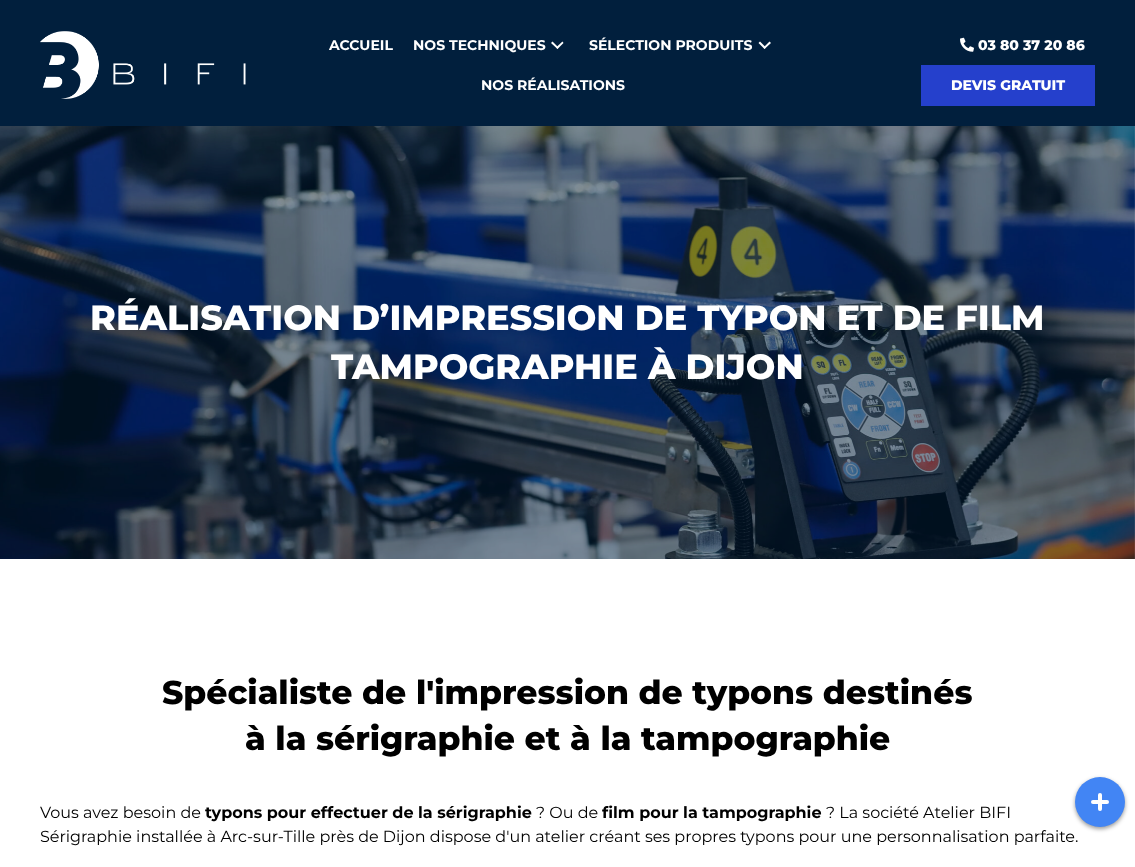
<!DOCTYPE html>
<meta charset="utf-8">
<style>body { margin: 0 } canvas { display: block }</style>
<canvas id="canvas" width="1135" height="867"></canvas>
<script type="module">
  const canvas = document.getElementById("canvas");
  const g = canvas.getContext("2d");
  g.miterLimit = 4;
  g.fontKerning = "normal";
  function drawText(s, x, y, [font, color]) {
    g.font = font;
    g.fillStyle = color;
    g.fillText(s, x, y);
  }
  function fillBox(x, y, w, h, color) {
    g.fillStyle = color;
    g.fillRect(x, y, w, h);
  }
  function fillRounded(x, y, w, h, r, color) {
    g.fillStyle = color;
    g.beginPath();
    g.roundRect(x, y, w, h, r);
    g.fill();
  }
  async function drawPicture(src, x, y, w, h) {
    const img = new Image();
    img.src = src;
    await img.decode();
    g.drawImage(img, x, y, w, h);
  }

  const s1 = ["bold 14px Montserrat", "#FFFFFF"];
  const s2 = ["800 14px Montserrat", "#FFFFFF"];
  const s3 = ["800 35px Montserrat", "#FFFFFF"];
  const s4 = ["800 33px Montserrat", "#000000"];
  const s5 = ["16px Montserrat", "#000000"];
  const s6 = ["bold 16px Montserrat", "#000000"];

  fillBox(0, 0, 1135, 867, "#FFFFFF");
  fillBox(0, 0, 1135, 126, "#011F3D");
  await drawPicture("pic1.png", 40, 31, 206, 68);
  drawText("ACCUEIL", 329, 50, s1);
  drawText("NOS TECHNIQUES", 413, 50, s1);
  g.beginPath();
  g.moveTo(562.5, 41.5);
  g.lineTo(563.5, 43);
  g.lineTo(557.5, 49);
  g.lineTo(556, 47.5);
  g.closePath();
  g.fill();
  g.beginPath();
  g.moveTo(552.5, 41.5);
  g.lineTo(558.5, 47.5);
  g.lineTo(557.5, 49);
  g.lineTo(551, 43);
  g.closePath();
  g.fill();
  drawText("SÉLECTION PRODUITS", 589, 50, s1);
  g.beginPath();
  g.moveTo(769.5, 41.5);
  g.lineTo(771, 43);
  g.lineTo(764.5, 49);
  g.lineTo(763.5, 47.5);
  g.closePath();
  g.fill();
  g.beginPath();
  g.moveTo(760, 41.5);
  g.lineTo(766, 47.5);
  g.lineTo(764.5, 49);
  g.lineTo(758.5, 43);
  g.closePath();
  g.fill();
  drawText("NOS RÉALISATIONS", 481, 90, s1);
  await drawPicture("pic2.png", 960, 37, 14, 15);
  drawText("03 80 37 20 86", 978, 50, s2);
  fillBox(921, 65, 174, 41, "#2540CC");
  drawText("DEVIS GRATUIT", 951, 90, s2);
  await drawPicture("pic3.png", 0, 126, 1135, 433);
  drawText("RÉALISATION D’IMPRESSION DE TYPON ET DE FILM", 90, 330, s3);
  drawText("TAMPOGRAPHIE À DIJON", 331, 379, s3);
  drawText("Spécialiste de l'impression de typons destinés", 162, 704, s4);
  drawText("à la sérigraphie et à la tampographie", 245, 750, s4);
  drawText("Vous avez besoin de", 40, 818, s5);
  drawText("typons pour effectuer de la sérigraphie", 205, 818, s6);
  drawText("? Ou de", 536, 818, s5);
  drawText("film pour la tampographie", 602, 818, s6);
  drawText("? La société Atelier BIFI", 826, 818, s5);
  drawText("Sérigraphie installée à Arc-sur-Tille près de Dijon dispose d'un atelier créant ses propres typons pour une personnalisation parfaite.", 40, 842, s5);
  g.fillStyle = "rgba(0, 0, 0, 0.4)";
  g.filter = "blur(2px)";
  g.beginPath();
  g.roundRect(1075, 779, 50, 50, 25);
  g.fill();
  g.filter = "none";
  g.fillStyle = "#4285F4";
  g.beginPath();
  g.arc(1100, 802, 25, 0, Math.PI * 2);
  g.fill();
  fillRounded(1098, 793, 4, 18, 2, "#FFFFFF");
  fillRounded(1091, 800, 18, 4, 2, "#FFFFFF");
</script>
